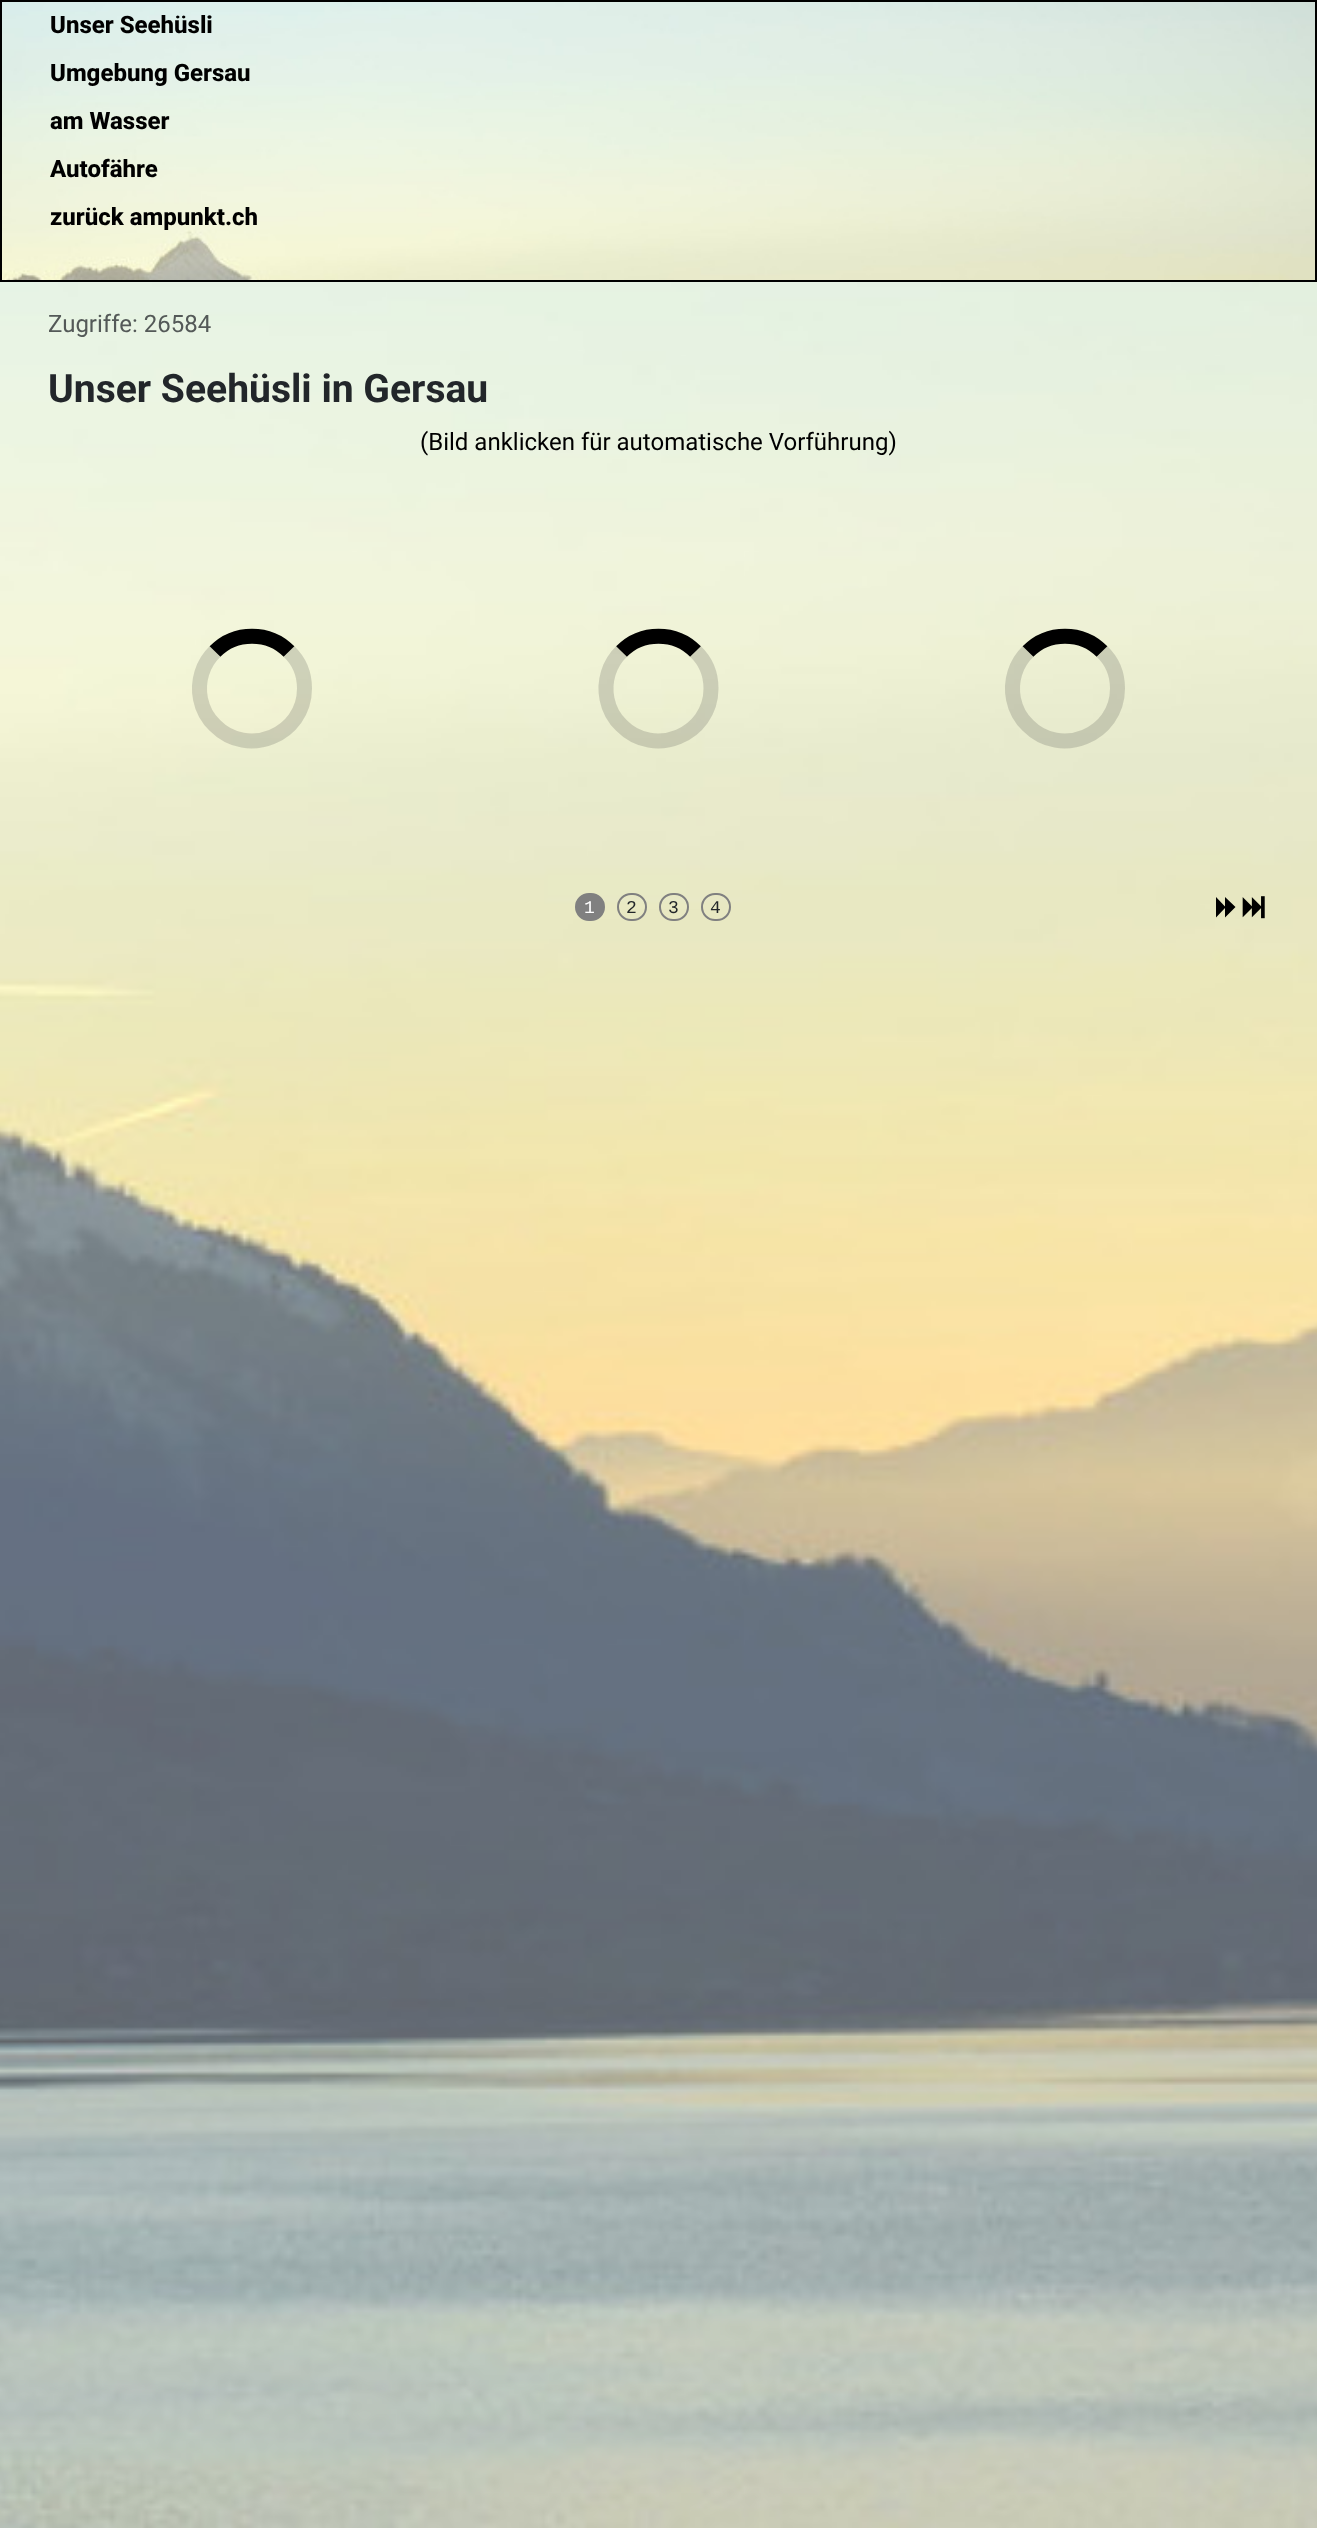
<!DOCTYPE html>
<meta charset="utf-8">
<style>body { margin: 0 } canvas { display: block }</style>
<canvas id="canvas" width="1317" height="2528"></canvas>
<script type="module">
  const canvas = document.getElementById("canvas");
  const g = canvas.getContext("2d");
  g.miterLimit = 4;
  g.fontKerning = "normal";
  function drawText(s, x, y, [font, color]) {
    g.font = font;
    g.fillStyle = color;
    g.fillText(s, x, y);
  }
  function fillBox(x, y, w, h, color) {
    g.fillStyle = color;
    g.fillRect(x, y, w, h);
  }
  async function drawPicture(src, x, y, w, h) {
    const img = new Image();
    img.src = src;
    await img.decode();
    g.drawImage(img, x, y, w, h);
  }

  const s1 = ["800 24px Roboto", "#000000"];
  const s2 = ["24px Roboto", "#545958"];
  const s3 = ["bold 39.1px Roboto", "#22262A"];
  const s4 = ["24px Roboto", "#000000"];
  const s5 = ["18px Liberation Mono", "#FFFFFF"];
  const s6 = ["18px Liberation Mono", "#22262A"];

  fillBox(0, 0, 1317, 2528, "#FFFFFF");
  await drawPicture("pic1.png", 0, 282, 1317, 2246);
  await drawPicture("pic2.png", 2, 2, 1313, 278);
  g.strokeStyle = "#000000";
  g.lineWidth = 2;
  g.strokeRect(1, 1, 1315, 280);
  drawText("Unser Seehüsli", 50, 33, s1);
  drawText("Umgebung Gersau", 50, 81, s1);
  drawText("am Wasser", 50, 129, s1);
  drawText("Autofähre", 50, 177, s1);
  drawText("zurück ampunkt.ch", 50, 225, s1);
  drawText("Zugriffe: 26584", 48, 332, s2);
  drawText("Unser Seehüsli in Gersau", 48, 402, s3);
  drawText("(Bild anklicken für automatische Vorführung)", 420, 450, s4);
  g.beginPath();
  g.moveTo(215, 651.5);
  g.bezierCurveTo(235, 631, 269, 631, 289, 651.5);
  g.lineWidth = 15;
  g.stroke();
  g.beginPath();
  g.moveTo(289, 651.5);
  g.bezierCurveTo(299, 661, 304.5, 674.5, 304.5, 688.5);
  g.bezierCurveTo(304.5, 735, 247.5, 758.5, 215, 725.5);
  g.bezierCurveTo(207.5, 718.5, 202.5, 709, 200.5, 699);
  g.bezierCurveTo(197, 681.5, 202.5, 663.5, 215, 651.5);
  g.strokeStyle = "rgba(64, 64, 64, 0.2)";
  g.stroke();
  g.beginPath();
  g.moveTo(621.5, 651.5);
  g.bezierCurveTo(641.5, 631, 675.5, 631, 695.5, 651.5);
  g.strokeStyle = "#000000";
  g.stroke();
  g.beginPath();
  g.moveTo(695.5, 651.5);
  g.bezierCurveTo(705.5, 661, 711, 674.5, 711, 688.5);
  g.bezierCurveTo(711, 735, 654, 758.5, 621.5, 725.5);
  g.bezierCurveTo(614, 718.5, 609, 709, 607, 699);
  g.bezierCurveTo(603.5, 681.5, 609, 663.5, 621.5, 651.5);
  g.strokeStyle = "rgba(64, 64, 64, 0.2)";
  g.stroke();
  g.beginPath();
  g.moveTo(1028, 651.5);
  g.bezierCurveTo(1048, 631, 1082, 631, 1102, 651.5);
  g.strokeStyle = "#000000";
  g.stroke();
  g.beginPath();
  g.moveTo(1102, 651.5);
  g.bezierCurveTo(1112, 661, 1117.5, 674.5, 1117.5, 688.5);
  g.bezierCurveTo(1117.5, 735, 1060.5, 758.5, 1028, 725.5);
  g.bezierCurveTo(1020.5, 718.5, 1015.5, 709, 1013.5, 699);
  g.bezierCurveTo(1010, 681.5, 1015.5, 663.5, 1028, 651.5);
  g.strokeStyle = "rgba(64, 64, 64, 0.2)";
  g.stroke();
  g.fillStyle = "#808080";
  g.beginPath();
  g.roundRect(576, 894, 28, 26, 13);
  g.fill();
  g.strokeStyle = "#808080";
  g.lineWidth = 2;
  g.stroke();
  drawText("1", 584, 913, s5);
  g.beginPath();
  g.roundRect(618, 894, 28, 26, 13);
  g.stroke();
  drawText("2", 626, 913, s6);
  g.beginPath();
  g.roundRect(660, 894, 28, 26, 13);
  g.stroke();
  drawText("3", 668, 913, s6);
  g.beginPath();
  g.roundRect(702, 894, 28, 26, 13);
  g.stroke();
  drawText("4", 710, 913, s6);
  g.fillStyle = "#000000";
  g.beginPath();
  g.moveTo(1225, 917.5);
  g.lineTo(1225, 908);
  g.lineTo(1216, 917.5);
  g.lineTo(1216, 897);
  g.lineTo(1225, 906.5);
  g.lineTo(1225, 897);
  g.lineTo(1235.5, 907);
  g.closePath();
  g.fill();
  await drawPicture("pic3.png", 1242, 896, 23, 23);
</script>
